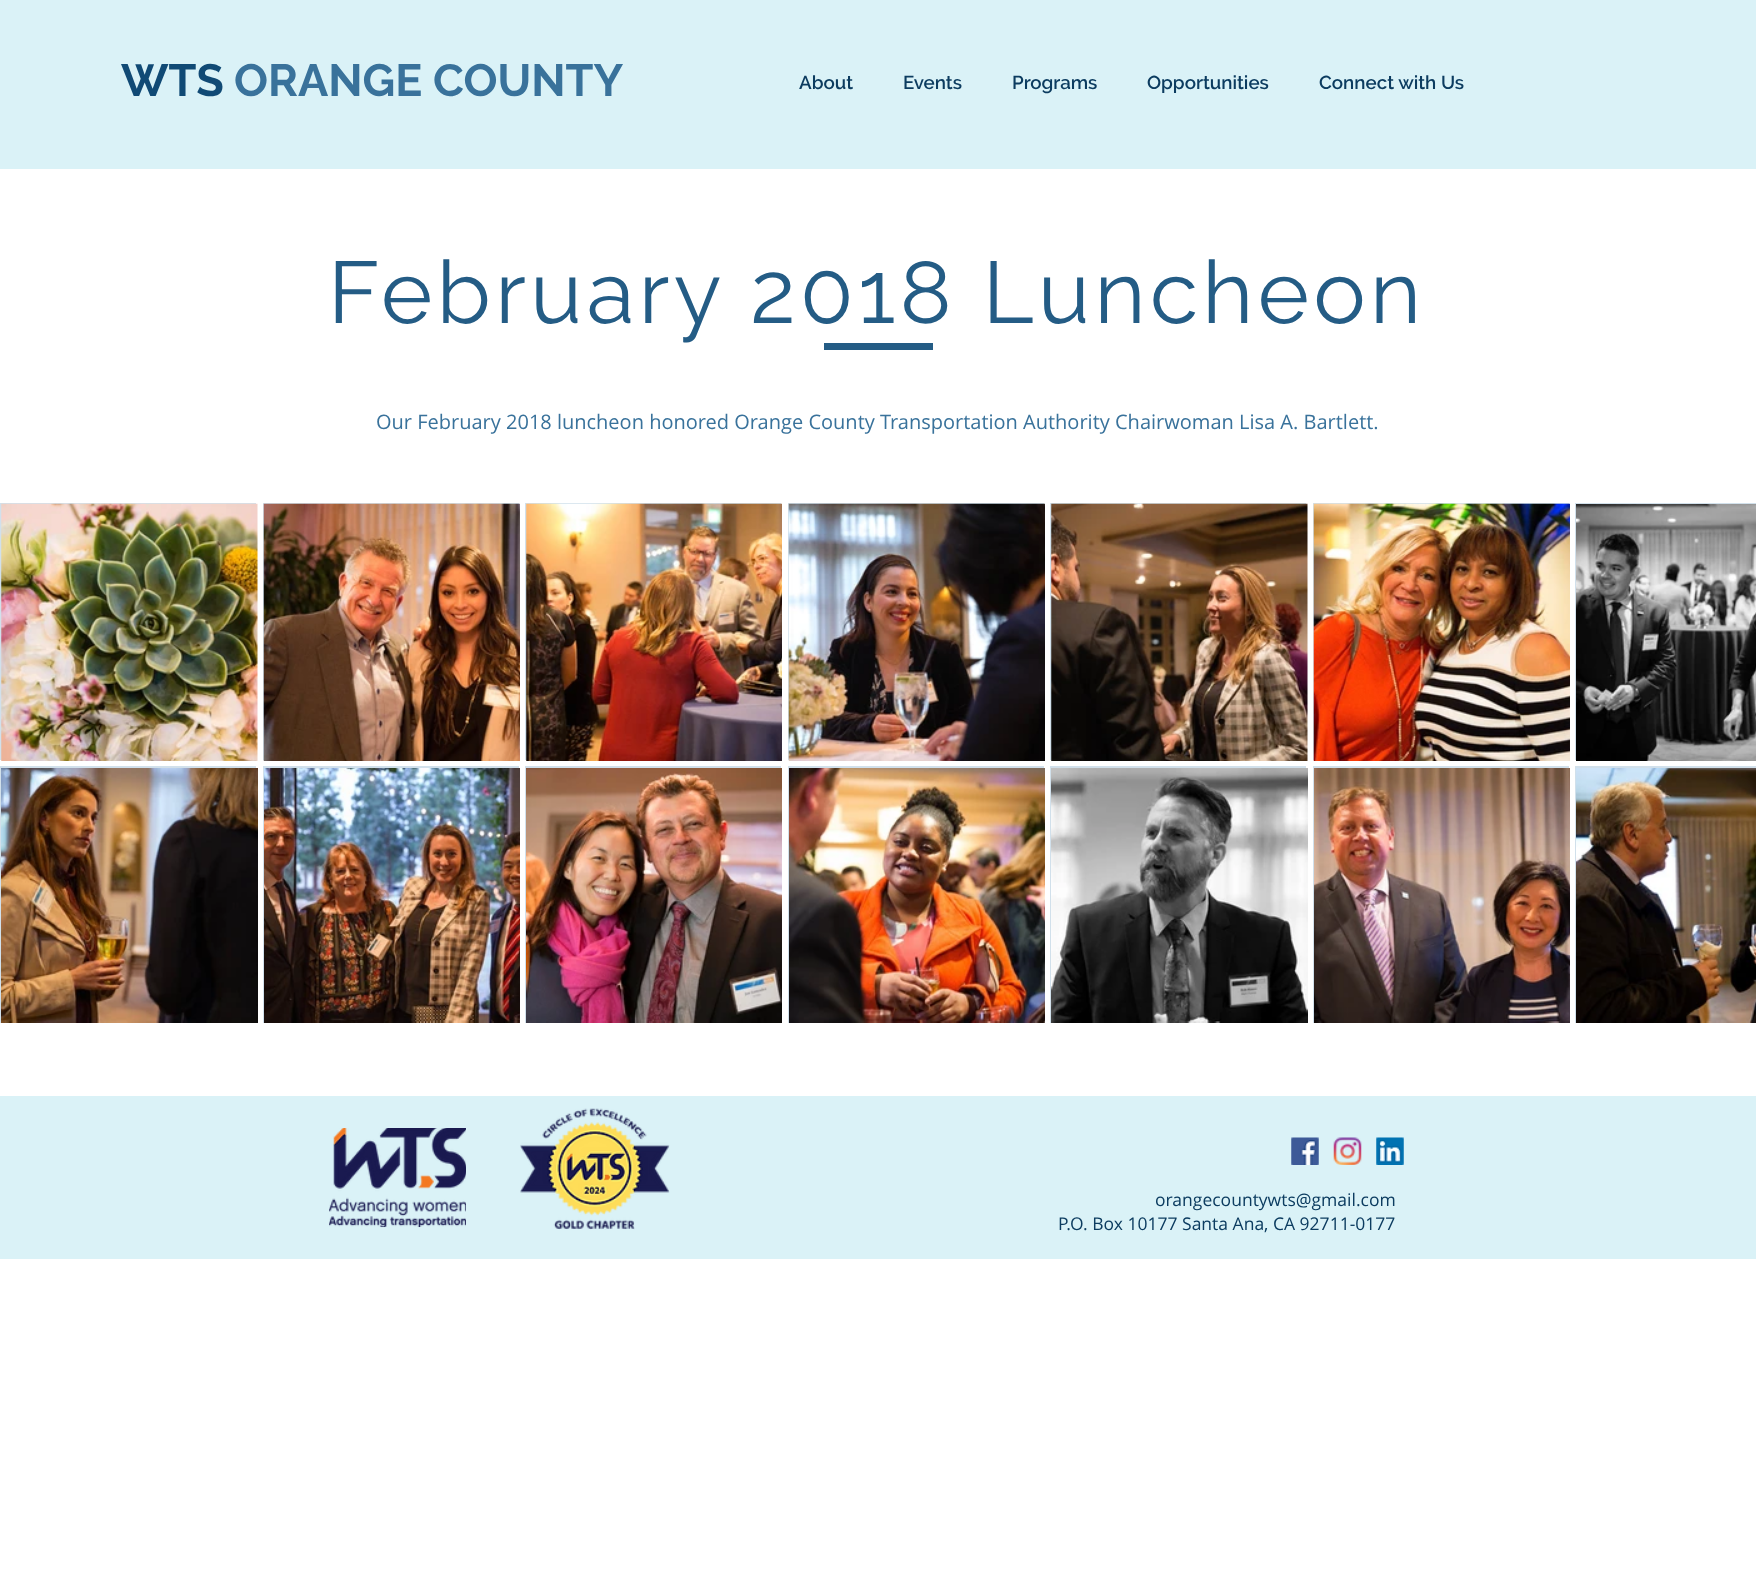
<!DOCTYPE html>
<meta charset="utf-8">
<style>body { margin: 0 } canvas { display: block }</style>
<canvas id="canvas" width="1756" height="1580"></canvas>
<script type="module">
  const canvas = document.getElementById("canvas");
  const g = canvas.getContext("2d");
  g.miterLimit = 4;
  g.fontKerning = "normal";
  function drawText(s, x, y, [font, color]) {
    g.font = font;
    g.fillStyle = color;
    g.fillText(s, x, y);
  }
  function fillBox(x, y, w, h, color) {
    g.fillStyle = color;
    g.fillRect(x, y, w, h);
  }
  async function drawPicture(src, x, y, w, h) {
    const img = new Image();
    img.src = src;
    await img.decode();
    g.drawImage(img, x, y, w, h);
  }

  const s1 = ["bold 45px Raleway", "#104A75"];
  const s2 = ["bold 45px Raleway", "#39729B"];
  const s3 = ["600 18.75px Raleway", "#0C3C60"];
  const s4 = ["87.5px Raleway", "#245C85"];
  const s5 = ["20px Open Sans", "#39729B"];
  const s6 = ["17.5px Open Sans", "#0C3C60"];

  fillBox(0, 0, 1756, 1580, "#FFFFFF");
  fillBox(0, 0, 1756, 169, "#DAF2F7");
  drawText("WTS", 121, 96, s1);
  drawText("ORANGE COUNTY", 234, 96, s2);
  drawText("About", 799, 89, s3);
  drawText("Events", 903, 89, s3);
  drawText("Programs", 1012, 89, s3);
  drawText("Opportunities", 1147, 89, s3);
  drawText("Connect with Us", 1319, 89, s3);
  g.letterSpacing = "4.4px";
  drawText("February 2018 Luncheon", 328, 323, s4);
  fillBox(824, 343, 109, 7, "#245C85");
  g.letterSpacing = "0px";
  drawText("Our February 2018 luncheon honored Orange County Transportation Authority Chairwoman Lisa A. Bartlett.", 376, 429, s5);
  fillBox(0, 503, 256, 257, "#D1E0EB");
  await drawPicture("pic1.png", 1, 503, 257, 258);
  fillBox(0, 766, 256, 257, "#D1E0EB");
  await drawPicture("pic2.png", 1, 768, 257, 255);
  fillBox(263, 503, 256, 257, "#D1E0EB");
  await drawPicture("pic3.png", 263, 503, 257, 258);
  fillBox(263, 766, 256, 257, "#D1E0EB");
  await drawPicture("pic4.png", 264, 768, 256, 255);
  fillBox(525, 503, 256, 257, "#D1E0EB");
  await drawPicture("pic5.png", 526, 503, 256, 258);
  fillBox(525, 766, 256, 257, "#D1E0EB");
  await drawPicture("pic6.png", 526, 768, 256, 255);
  fillBox(788, 503, 256, 257, "#D1E0EB");
  await drawPicture("pic7.png", 788, 503, 257, 258);
  fillBox(788, 766, 256, 257, "#D1E0EB");
  await drawPicture("pic8.png", 789, 768, 256, 255);
  fillBox(1050, 503, 256, 257, "#D1E0EB");
  await drawPicture("pic9.png", 1051, 503, 257, 258);
  fillBox(1050, 766, 256, 257, "#D1E0EB");
  await drawPicture("pic10.png", 1051, 768, 257, 255);
  fillBox(1313, 503, 256, 257, "#D1E0EB");
  await drawPicture("pic11.png", 1313, 503, 257, 258);
  fillBox(1313, 766, 256, 257, "#D1E0EB");
  await drawPicture("pic12.png", 1314, 768, 256, 255);
  fillBox(1575, 503, 181, 257, "#D1E0EB");
  await drawPicture("pic13.png", 1576, 504, 180, 257);
  fillBox(1575, 766, 181, 257, "#D1E0EB");
  await drawPicture("pic14.png", 1576, 768, 180, 255);
  fillBox(0, 1096, 1756, 163, "#DAF2F7");
  await drawPicture("pic15.png", 329, 1128, 137, 100);
  await drawPicture("pic16.png", 520, 1108, 150, 122);
  await drawPicture("pic17.png", 1291, 1137, 28, 28);
  await drawPicture("pic18.png", 1333, 1137, 29, 28);
  await drawPicture("pic19.png", 1376, 1137, 28, 28);
  drawText("orangecountywts@gmail.com", 1155, 1206, s6);
  drawText("P.O. Box 10177 Santa Ana, CA 92711-0177", 1058, 1230, s6);
</script>
